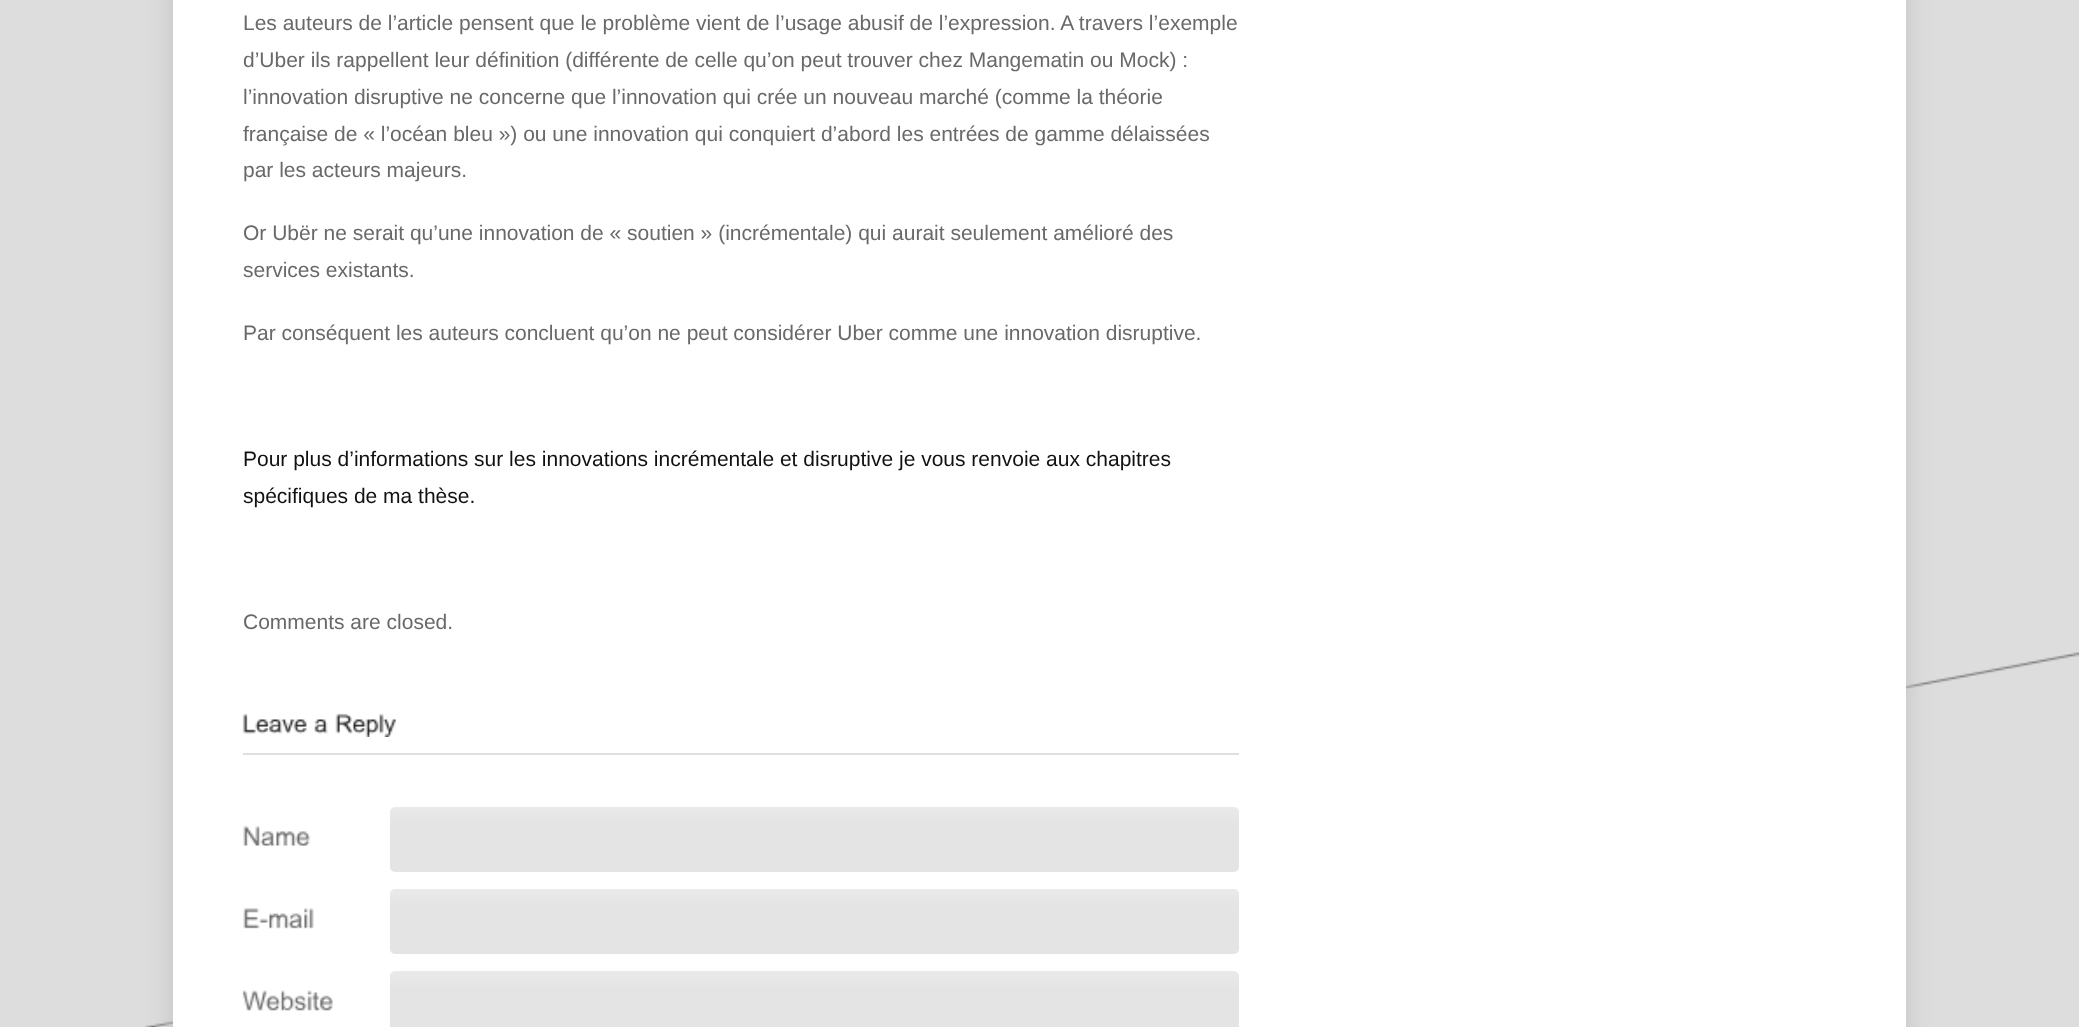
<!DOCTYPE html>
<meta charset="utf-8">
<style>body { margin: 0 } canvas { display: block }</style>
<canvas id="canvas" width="2079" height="1027"></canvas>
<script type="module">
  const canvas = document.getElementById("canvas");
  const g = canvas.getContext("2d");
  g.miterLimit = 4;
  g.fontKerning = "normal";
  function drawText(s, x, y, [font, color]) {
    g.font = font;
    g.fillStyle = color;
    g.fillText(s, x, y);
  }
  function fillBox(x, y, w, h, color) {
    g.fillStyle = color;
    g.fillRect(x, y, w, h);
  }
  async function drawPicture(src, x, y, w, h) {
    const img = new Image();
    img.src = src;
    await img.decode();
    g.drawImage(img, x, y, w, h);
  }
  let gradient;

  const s1 = ["21px Liberation Sans", "#696969"];
  const s2 = ["21px Liberation Sans", "#111111"];

  fillBox(0, 0, 2079, 1027, "#DDDDDD");
  await drawPicture("pic1.png", 145, 652, 1934, 375);
  g.fillStyle = "#C2C2C2";
  g.filter = "blur(13px)";
  g.beginPath();
  g.rect(173, -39, 1733, 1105);
  g.fill();
  g.filter = "none";
  fillBox(173, 0, 1733, 1027, "#FFFFFF");
  drawText("Les auteurs de l’article pensent que le problème vient de l’usage abusif de l’expression. A travers l’exemple", 243, 30, s1);
  drawText("d’Uber ils rappellent leur définition (différente de celle qu’on peut trouver chez Mangematin ou Mock) :", 243, 67, s1);
  drawText("l’innovation disruptive ne concerne que l’innovation qui crée un nouveau marché (comme la théorie", 243, 104, s1);
  drawText("française de « l’océan bleu ») ou une innovation qui conquiert d’abord les entrées de gamme délaissées", 243, 141, s1);
  drawText("par les acteurs majeurs.", 243, 177, s1);
  drawText("Or Ubër ne serait qu’une innovation de « soutien » (incrémentale) qui aurait seulement amélioré des", 243, 240, s1);
  drawText("services existants.", 243, 277, s1);
  drawText("Par conséquent les auteurs concluent qu’on ne peut considérer Uber comme une innovation disruptive.", 243, 340, s1);
  drawText("Pour plus d’informations sur les innovations incrémentale et disruptive je vous renvoie aux chapitres", 243, 466, s2);
  drawText("spécifiques de ma thèse.", 243, 503, s2);
  drawText("Comments are closed.", 243, 629, s1);
  await drawPicture("pic2.png", 242, 713, 65, 21);
  await drawPicture("pic3.png", 314, 719, 14, 15);
  await drawPicture("pic4.png", 335, 713, 61, 24);
  fillBox(243, 753, 996, 2, "#DFDFDF");
  await drawPicture("pic5.png", 243, 826, 68, 20);
  gradient = g.createLinearGradient(390, 807, 390, 824);
  gradient.addColorStop(0, "#E4E4E4");
  gradient.addColorStop(0.02, "#EAEAEA");
  gradient.addColorStop(1, "#E4E4E4");
  g.fillStyle = gradient;
  g.beginPath();
  g.roundRect(390, 807, 849, 65, 5);
  g.fill();
  await drawPicture("pic6.png", 243, 908, 71, 21);
  gradient = g.createLinearGradient(390, 889, 390, 907);
  gradient.addColorStop(0, "#E4E4E4");
  gradient.addColorStop(0.02, "#EAEAEA");
  gradient.addColorStop(1, "#E4E4E4");
  g.fillStyle = gradient;
  g.beginPath();
  g.roundRect(390, 889, 849, 65, 5);
  g.fill();
  await drawPicture("pic7.png", 242, 990, 91, 21);
  gradient = g.createLinearGradient(390, 971, 390, 989);
  gradient.addColorStop(0, "#E4E4E4");
  gradient.addColorStop(0.02, "#EAEAEA");
  gradient.addColorStop(1, "#E4E4E4");
  g.fillStyle = gradient;
  g.beginPath();
  g.roundRect(390, 971, 849, 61, 5);
  g.fill();
</script>
